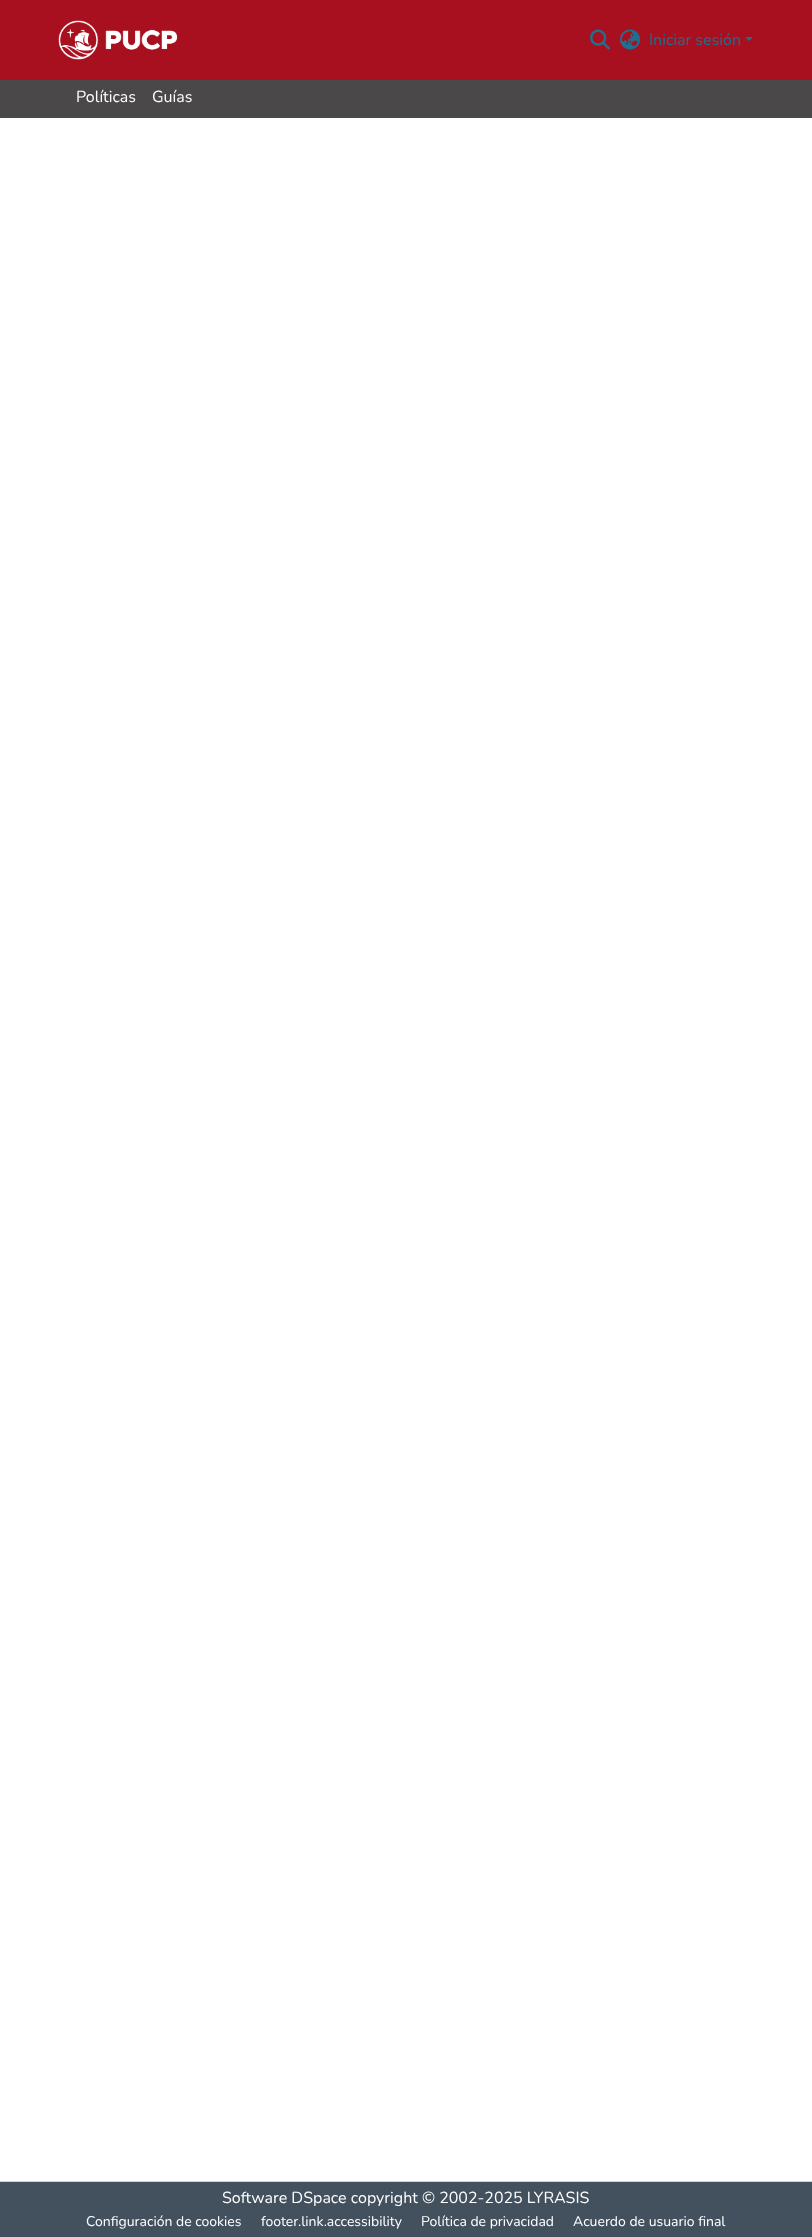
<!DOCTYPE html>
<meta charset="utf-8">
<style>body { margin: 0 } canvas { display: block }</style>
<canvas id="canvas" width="812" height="2237"></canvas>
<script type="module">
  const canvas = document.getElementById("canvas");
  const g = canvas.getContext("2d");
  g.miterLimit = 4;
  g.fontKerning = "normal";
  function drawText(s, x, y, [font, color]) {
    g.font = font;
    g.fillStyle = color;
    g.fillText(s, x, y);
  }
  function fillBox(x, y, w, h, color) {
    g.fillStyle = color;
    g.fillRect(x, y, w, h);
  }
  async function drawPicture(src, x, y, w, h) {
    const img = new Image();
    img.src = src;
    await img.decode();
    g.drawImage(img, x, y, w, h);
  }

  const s1 = ["16px Nunito", "#1E6F90"];
  const s2 = ["16px Nunito", "#FFFFFF"];
  const s3 = ["14px Nunito", "#FFFFFF"];

  fillBox(0, 0, 812, 2237, "#FFFFFF");
  fillBox(0, 0, 812, 80, "#A8101F");
  await drawPicture("pic1.png", 58, 20, 119, 40);
  await drawPicture("pic2.png", 590, 29, 20, 21);
  await drawPicture("pic3.png", 620, 29, 20, 21);
  drawText("Iniciar sesión", 649, 45, s1);
  g.beginPath();
  g.moveTo(745, 37);
  g.lineTo(753, 37);
  g.lineTo(749, 41);
  g.closePath();
  g.fill();
  fillBox(0, 80, 812, 38, "#4A4848");
  drawText("Políticas", 76, 102, s2);
  drawText("Guías", 152, 102, s2);
  fillBox(0, 2182, 812, 55, "#43515F");
  fillBox(0, 2181, 812, 1, "#CED4DA");
  drawText("Software DSpace copyright © 2002-2025 LYRASIS", 222, 2203, s2);
  drawText("Configuración de cookies", 86, 2226, s3);
  fillBox(251, 2210, 1, 23, "#495057");
  drawText("footer.link.accessibility", 261, 2226, s3);
  fillBox(411, 2210, 1, 23, "#495057");
  drawText("Política de privacidad", 421, 2226, s3);
  fillBox(563, 2210, 1, 23, "#495057");
  drawText("Acuerdo de usuario final", 573, 2226, s3);
</script>
